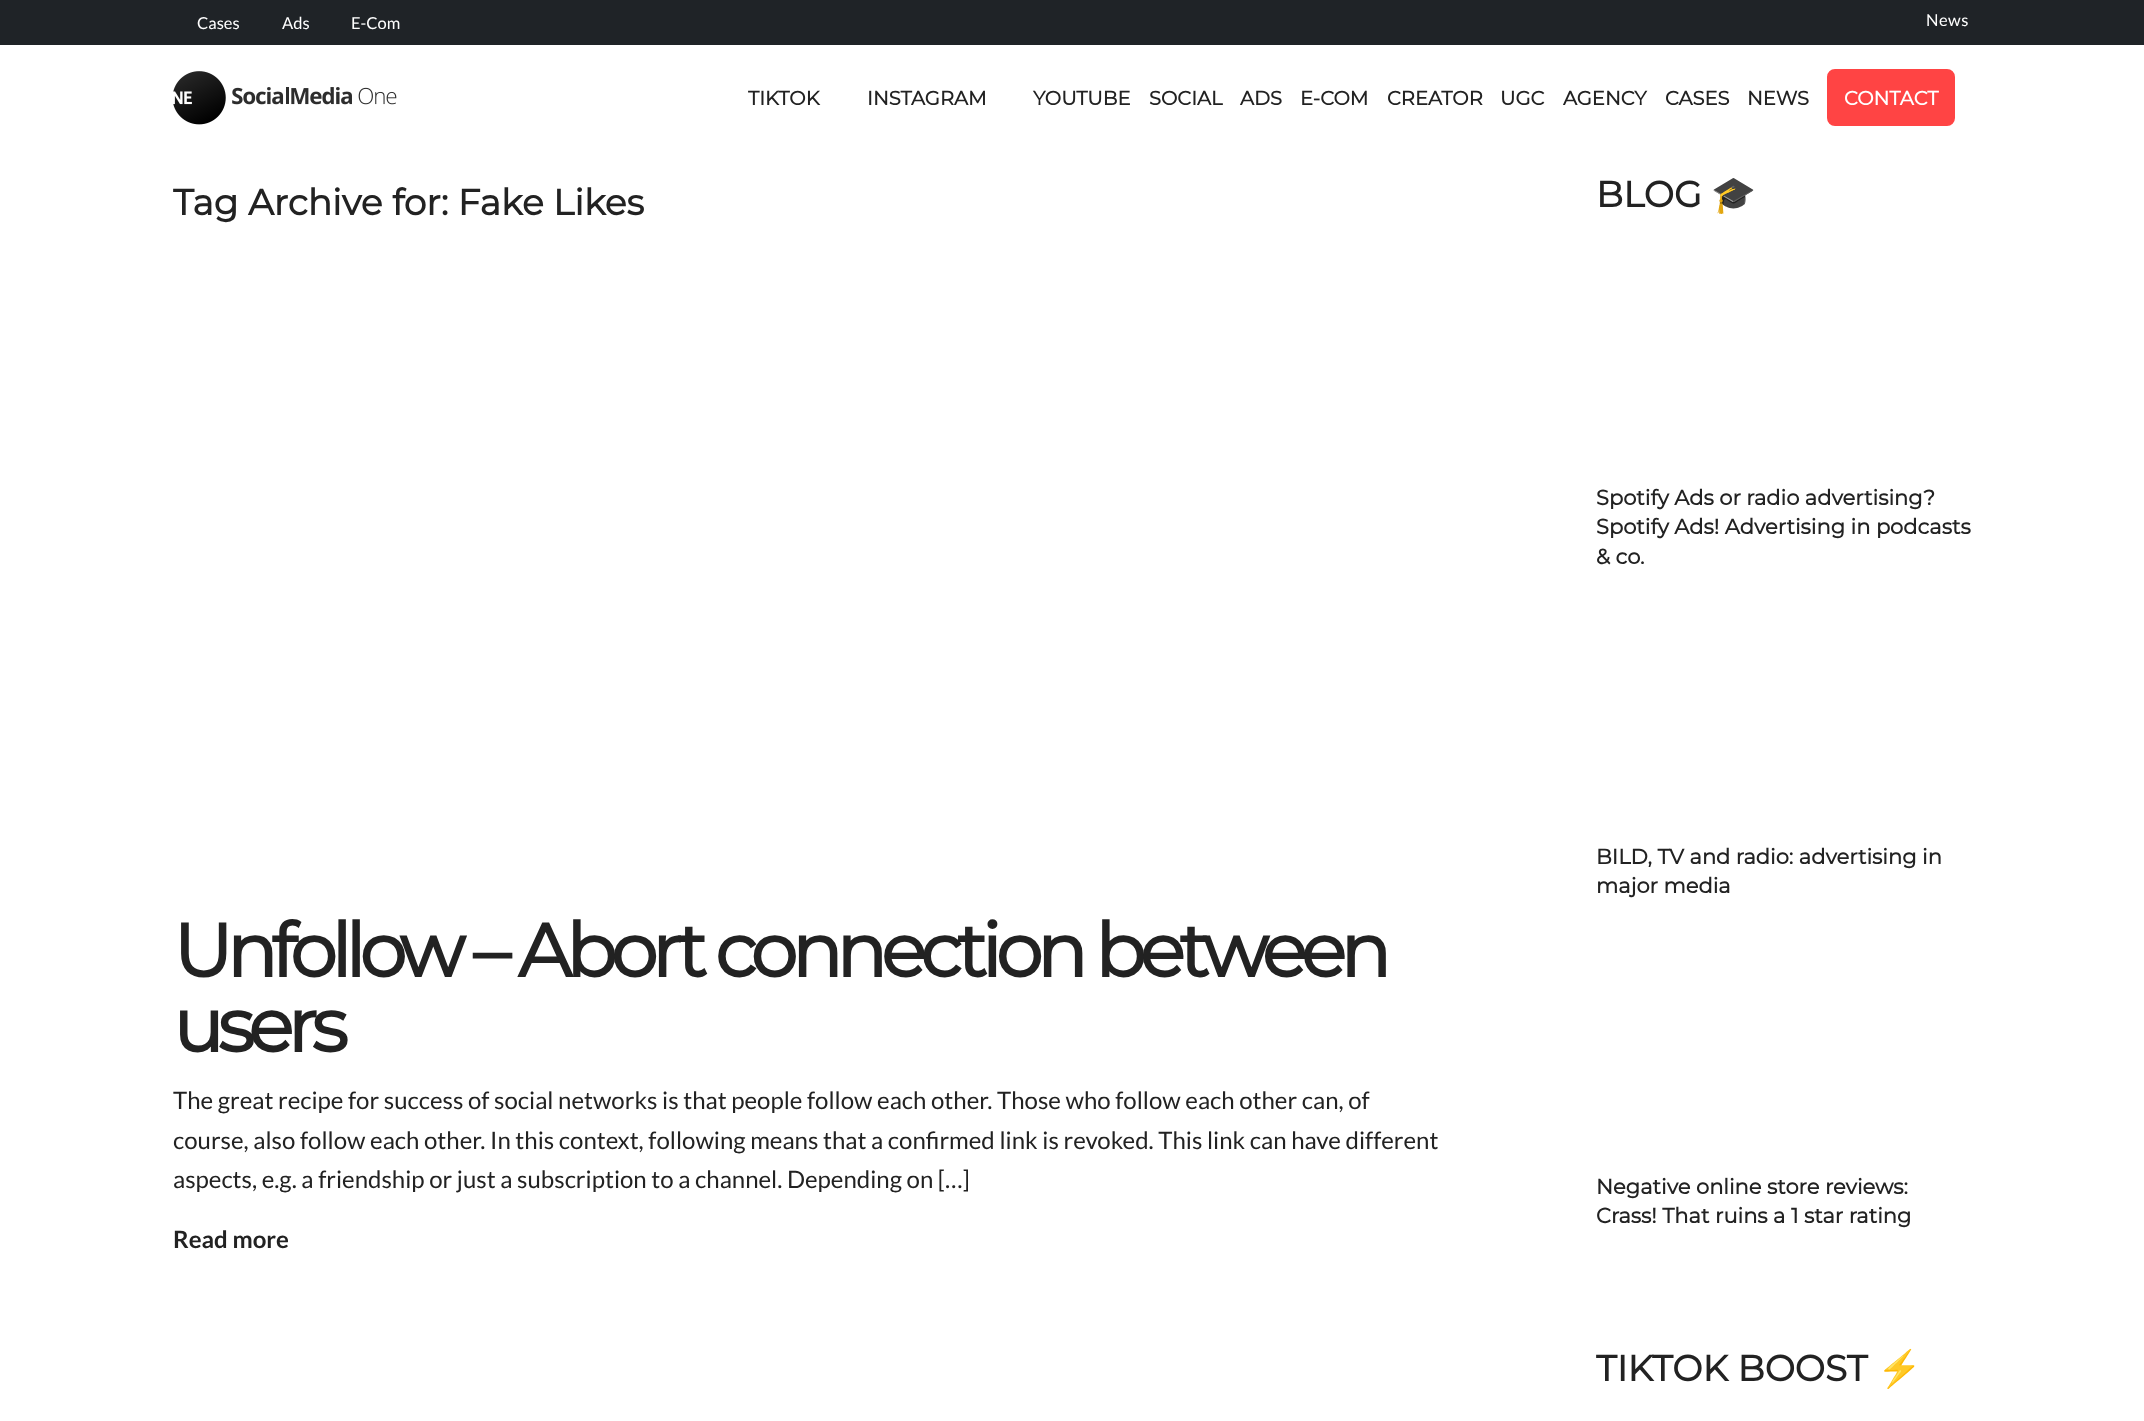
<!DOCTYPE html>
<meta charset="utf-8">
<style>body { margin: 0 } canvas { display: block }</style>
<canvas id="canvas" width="2144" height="1421"></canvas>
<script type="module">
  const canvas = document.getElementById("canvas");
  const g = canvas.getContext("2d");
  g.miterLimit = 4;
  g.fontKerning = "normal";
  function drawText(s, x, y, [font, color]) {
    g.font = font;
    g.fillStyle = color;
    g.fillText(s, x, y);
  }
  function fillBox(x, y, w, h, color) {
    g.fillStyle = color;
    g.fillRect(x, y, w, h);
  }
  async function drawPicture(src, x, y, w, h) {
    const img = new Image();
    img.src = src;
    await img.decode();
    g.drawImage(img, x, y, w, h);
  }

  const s1 = ["16.5px Lato", "#FFFFFF"];
  const s2 = ["bold 19.5px Montserrat", "#222222"];
  const s3 = ["bold 19.5px Montserrat", "#FFFFFF"];
  const s4 = ["bold 36px Montserrat", "#222222"];
  const s5 = ["bold 75px Montserrat", "#222222"];
  const s6 = ["24px Lato", "#222222"];
  const s7 = ["bold 24px Lato", "#222222"];
  const s8 = ["bold 36px Noto Color Emoji", "#222222"];
  const s9 = ["bold 21px Montserrat", "#222222"];

  fillBox(0, 0, 2144, 1421, "#FFFFFF");
  fillBox(0, 0, 2144, 45, "#1F2327");
  drawText("Cases", 197, 29, s1);
  drawText("Ads", 282, 29, s1);
  drawText("E-Com", 351, 29, s1);
  g.letterSpacing = "0.5px";
  drawText("News", 1926, 26, s1);
  await drawPicture("pic1.png", 173, 71, 224, 54);
  g.letterSpacing = "0px";
  drawText("TIKTOK", 748, 105, s2);
  drawText("INSTAGRAM", 867, 105, s2);
  drawText("YOUTUBE", 1033, 105, s2);
  drawText("SOCIAL", 1149, 105, s2);
  drawText("ADS", 1240, 105, s2);
  drawText("E-COM", 1300, 105, s2);
  drawText("CREATOR", 1387, 105, s2);
  drawText("UGC", 1500, 105, s2);
  drawText("AGENCY", 1563, 105, s2);
  drawText("CASES", 1665, 105, s2);
  drawText("NEWS", 1747, 105, s2);
  g.fillStyle = "#FF4444";
  g.beginPath();
  g.roundRect(1828.5, 70.5, 125, 54, 6.5);
  g.fill();
  g.strokeStyle = "#FF4444";
  g.lineWidth = 3;
  g.stroke();
  drawText("CONTACT", 1844, 105, s3);
  drawText("Tag Archive for: Fake Likes", 173, 215, s4);
  g.letterSpacing = "-6px";
  drawText("Unfollow – Abort connection between", 173, 977, s5);
  drawText("users", 173, 1052, s5);
  g.letterSpacing = "0px";
  drawText("The great recipe for success of social networks is that people follow each other. Those who follow each other can, of", 173, 1109, s6);
  drawText("course, also follow each other. In this context, following means that a confirmed link is revoked. This link can have different", 173, 1149, s6);
  drawText("aspects, e.g. a friendship or just a subscription to a channel. Depending on […]", 173, 1188, s6);
  drawText("Read more", 173, 1248, s7);
  drawText("BLOG", 1596, 207, s4);
  drawText("🎓", 1711, 207, s8);
  drawText("Spotify Ads or radio advertising?", 1596, 505, s9);
  drawText("Spotify Ads! Advertising in podcasts", 1596, 534, s9);
  drawText("& co.", 1596, 564, s9);
  drawText("BILD, TV and radio: advertising in", 1596, 864, s9);
  drawText("major media", 1596, 893, s9);
  drawText("Negative online store reviews:", 1596, 1194, s9);
  drawText("Crass! That ruins a 1 star rating", 1596, 1223, s9);
  drawText("TIKTOK BOOST", 1596, 1381, s4);
  drawText("⚡", 1877, 1381, s8);
</script>
